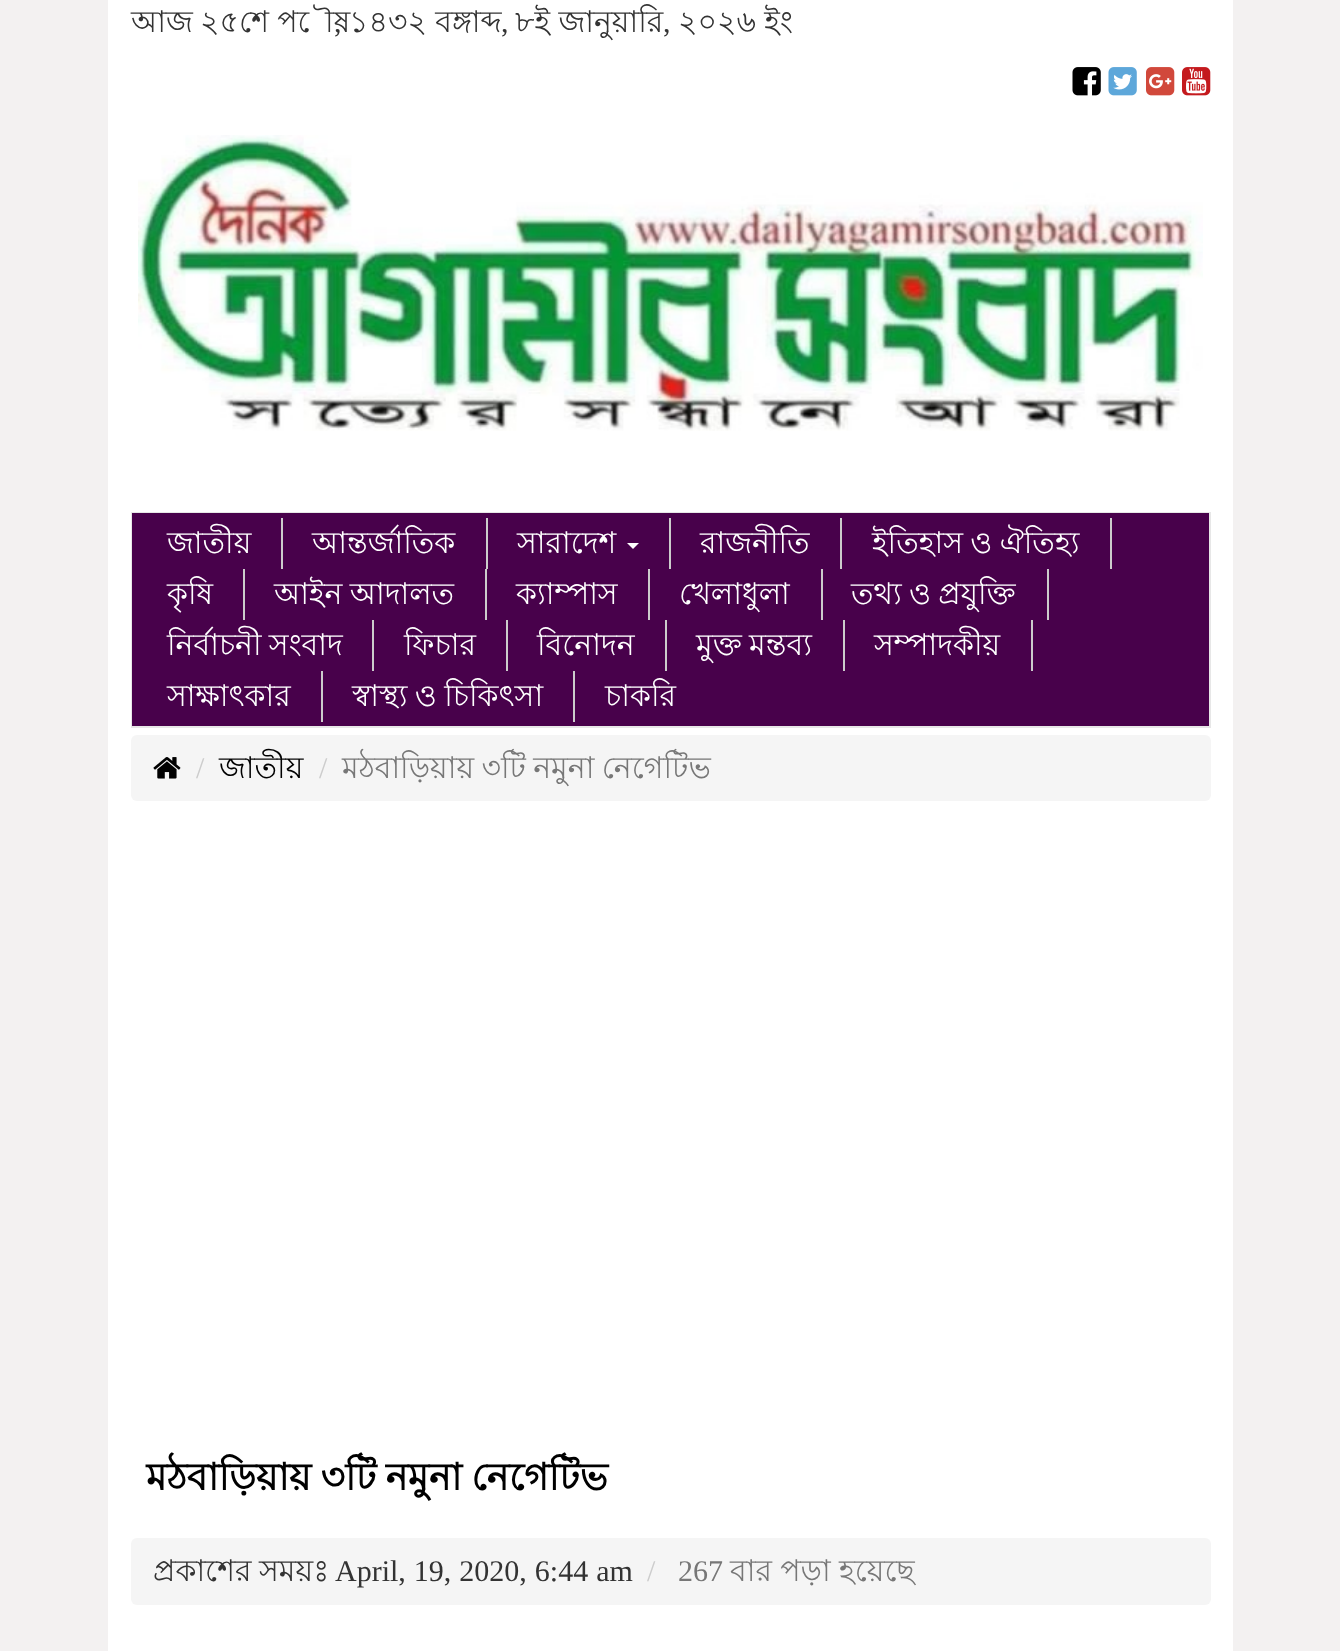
<!DOCTYPE html>
<meta charset="utf-8">
<style>body { margin: 0 } canvas { display: block }</style>
<canvas id="canvas" width="1340" height="1651"></canvas>
<script type="module">
  const canvas = document.getElementById("canvas");
  const g = canvas.getContext("2d");
  g.miterLimit = 4;
  g.fontKerning = "normal";
  function drawText(s, x, y, [font, color]) {
    g.font = font;
    g.fillStyle = color;
    g.fillText(s, x, y);
  }
  function fillBox(x, y, w, h, color) {
    g.fillStyle = color;
    g.fillRect(x, y, w, h);
  }
  function fillRounded(x, y, w, h, r, color) {
    g.fillStyle = color;
    g.beginPath();
    g.roundRect(x, y, w, h, r);
    g.fill();
  }
  async function drawPicture(src, x, y, w, h) {
    const img = new Image();
    img.src = src;
    await img.decode();
    g.drawImage(img, x, y, w, h);
  }

  const s1 = ["30px Lohit Bengali", "#333333"];
  const s2 = ["30px Liberation Serif", "#333333"];
  const s3 = ["30px Lohit Bengali", "#FFFFFF"];
  const s4 = ["30px Liberation Serif", "#CCCCCC"];
  const s5 = ["30px Lohit Bengali", "#000000"];
  const s6 = ["30px Lohit Bengali", "#777777"];
  const s7 = ["bold 37.5px Lohit Bengali", "#000000"];
  const s8 = ["30px Liberation Serif", "#777777"];

  fillBox(0, 0, 1340, 1651, "#F3F1F1");
  fillBox(108, 0, 1125, 1651, "#FFFFFF");
  drawText("আজ", 131, 32, s1);
  drawText("২৫শে পৌষ", 200, 32, s1);
  drawText(",", 334, 32, s2);
  drawText("১৪৩২ বঙ্গাব্দ", 349, 32, s1);
  drawText(",", 501, 32, s2);
  drawText("৮ই জানুয়ারি", 515, 32, s1);
  drawText(",", 663, 32, s2);
  drawText("২০২৬ ইং", 678, 32, s1);
  await drawPicture("pic1.png", 1072, 67, 29, 29);
  await drawPicture("pic2.png", 1108, 67, 29, 29);
  await drawPicture("pic3.png", 1146, 67, 29, 29);
  await drawPicture("pic4.png", 1182, 67, 29, 29);
  await drawPicture("pic5.png", 138, 135, 1065, 296);
  g.strokeStyle = "#E7E7E7";
  g.lineWidth = 2;
  g.strokeRect(132, 513, 1078, 214);
  fillBox(132, 513, 1077, 213, "#48014B");
  fillBox(281, 518, 2, 51, "#CCCCCC");
  drawText("জাতীয়", 167, 553, s3);
  fillBox(486, 518, 2, 51, "#CCCCCC");
  drawText("আন্তর্জাতিক", 312, 553, s3);
  fillBox(669, 518, 2, 51, "#CCCCCC");
  drawText("সারাদেশ", 517, 553, s3);
  g.beginPath();
  g.moveTo(627, 543);
  g.lineTo(639, 543);
  g.lineTo(633, 549);
  g.closePath();
  g.fill();
  fillBox(840, 518, 2, 51, "#CCCCCC");
  drawText("রাজনীতি", 700, 553, s3);
  fillBox(1110, 518, 2, 51, "#CCCCCC");
  g.wordSpacing = "-1px";
  drawText("ইতিহাস ও ঐতিহ্য", 872, 553, s3);
  fillBox(243, 569, 2, 51, "#CCCCCC");
  g.wordSpacing = "0px";
  drawText("কৃষি", 167, 604, s3);
  fillBox(485, 569, 2, 51, "#CCCCCC");
  g.wordSpacing = "-1px";
  drawText("আইন আদালত", 274, 604, s3);
  fillBox(648, 569, 2, 51, "#CCCCCC");
  g.wordSpacing = "0px";
  drawText("ক্যাম্পাস", 516, 604, s3);
  fillBox(821, 569, 2, 51, "#CCCCCC");
  drawText("খেলাধুলা", 679, 604, s3);
  fillBox(1047, 569, 2, 51, "#CCCCCC");
  g.wordSpacing = "-1px";
  drawText("তথ্য ও প্রযুক্তি", 851, 604, s3);
  fillBox(372, 620, 2, 51, "#CCCCCC");
  drawText("নির্বাচনী সংবাদ", 167, 655, s3);
  fillBox(506, 620, 2, 51, "#CCCCCC");
  g.wordSpacing = "0px";
  drawText("ফিচার", 404, 655, s3);
  fillBox(665, 620, 2, 51, "#CCCCCC");
  drawText("বিনোদন", 537, 655, s3);
  fillBox(843, 620, 2, 51, "#CCCCCC");
  g.wordSpacing = "-1px";
  drawText("মুক্ত মন্তব্য", 696, 655, s3);
  fillBox(1031, 620, 2, 51, "#CCCCCC");
  g.wordSpacing = "0px";
  drawText("সম্পাদকীয়", 874, 655, s3);
  fillBox(321, 671, 2, 51, "#CCCCCC");
  drawText("সাক্ষাৎকার", 167, 706, s3);
  fillBox(573, 671, 2, 51, "#CCCCCC");
  g.wordSpacing = "-1px";
  drawText("স্বাস্থ্য ও চিকিৎসা", 352, 706, s3);
  g.wordSpacing = "0px";
  drawText("চাকরি", 605, 706, s3);
  fillRounded(131, 735, 1080, 66, 6, "#F5F5F5");
  await drawPicture("pic6.png", 153, 757, 28, 22);
  drawText("/", 196, 778, s4);
  drawText("জাতীয়", 219, 778, s5);
  drawText("/", 319, 778, s4);
  g.wordSpacing = "-1px";
  drawText("মঠবাড়িয়ায় ৩টি নমুনা নেগেটিভ", 342, 778, s6);
  drawText("মঠবাড়িয়ায় ৩টি নমুনা নেগেটিভ", 146, 1490, s7);
  fillRounded(131, 1538, 1080, 67, 6, "#F5F5F5");
  g.wordSpacing = "0px";
  drawText("প্রকাশের", 153, 1581, s1);
  drawText("সময়ঃ", 259, 1581, s1);
  g.wordSpacing = "0.5px";
  drawText("April, 19, 2020, 6:44 am", 335, 1581, s2);
  g.wordSpacing = "0px";
  drawText("/", 647, 1581, s4);
  drawText("267", 678, 1581, s8);
  drawText("বার পড়া হয়েছে", 730, 1581, s6);
</script>
